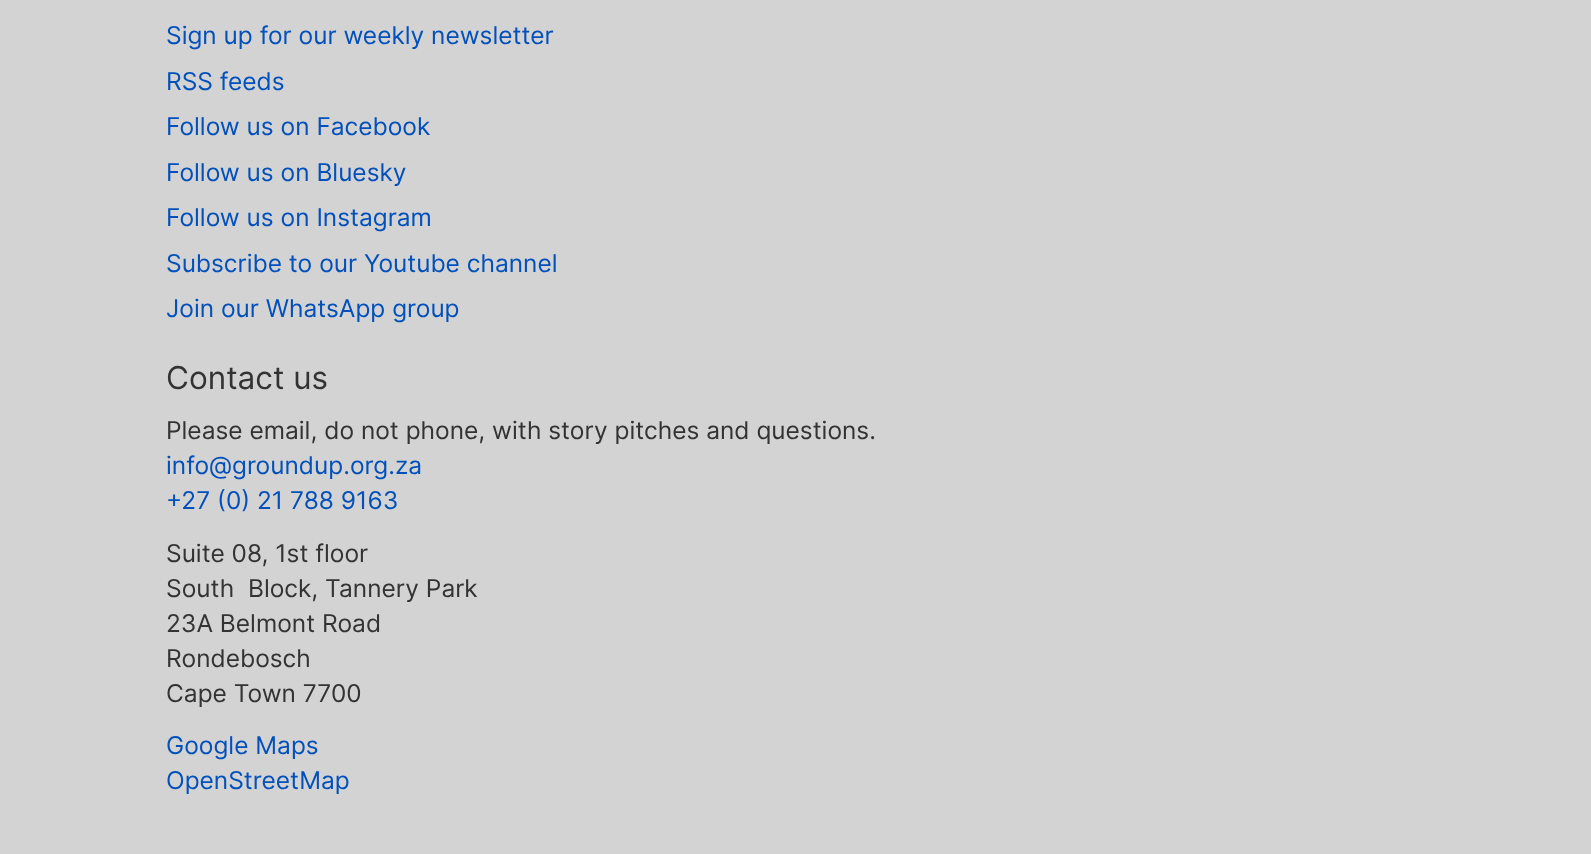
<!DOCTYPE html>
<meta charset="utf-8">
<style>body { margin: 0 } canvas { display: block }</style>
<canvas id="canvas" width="1591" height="854"></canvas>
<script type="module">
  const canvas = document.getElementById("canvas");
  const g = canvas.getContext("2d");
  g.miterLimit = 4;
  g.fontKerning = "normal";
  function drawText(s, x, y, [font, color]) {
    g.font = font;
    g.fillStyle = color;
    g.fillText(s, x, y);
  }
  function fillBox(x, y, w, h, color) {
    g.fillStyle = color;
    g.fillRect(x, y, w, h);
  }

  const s1 = ["24.5px Inter", "#0250BB"];
  const s2 = ["31.5px Inter", "#333333"];
  const s3 = ["24.5px Inter", "#333333"];

  fillBox(0, 0, 1591, 854, "#D3D3D3");
  drawText("Sign up for our weekly newsletter", 166, 44, s1);
  drawText("RSS feeds", 166, 90, s1);
  drawText("Follow us on Facebook", 166, 135, s1);
  drawText("Follow us on Bluesky", 166, 181, s1);
  drawText("Follow us on Instagram", 166, 226, s1);
  drawText("Subscribe to our Youtube channel", 166, 272, s1);
  drawText("Join our WhatsApp group", 166, 317, s1);
  drawText("Contact us", 166, 389, s2);
  drawText("Please email, do not phone, with story pitches and questions.", 166, 439, s3);
  drawText("info@groundup.org.za", 166, 474, s1);
  drawText("+27 (0) 21 788 9163", 166, 509, s1);
  drawText("Suite 08, 1st floor", 166, 562, s3);
  drawText("South", 166, 597, s3);
  drawText("Block, Tannery Park", 248, 597, s3);
  drawText("23A Belmont Road", 166, 632, s3);
  drawText("Rondebosch", 166, 667, s3);
  drawText("Cape Town 7700", 166, 702, s3);
  drawText("Google Maps", 166, 754, s1);
  drawText("OpenStreetMap", 166, 789, s1);
</script>
